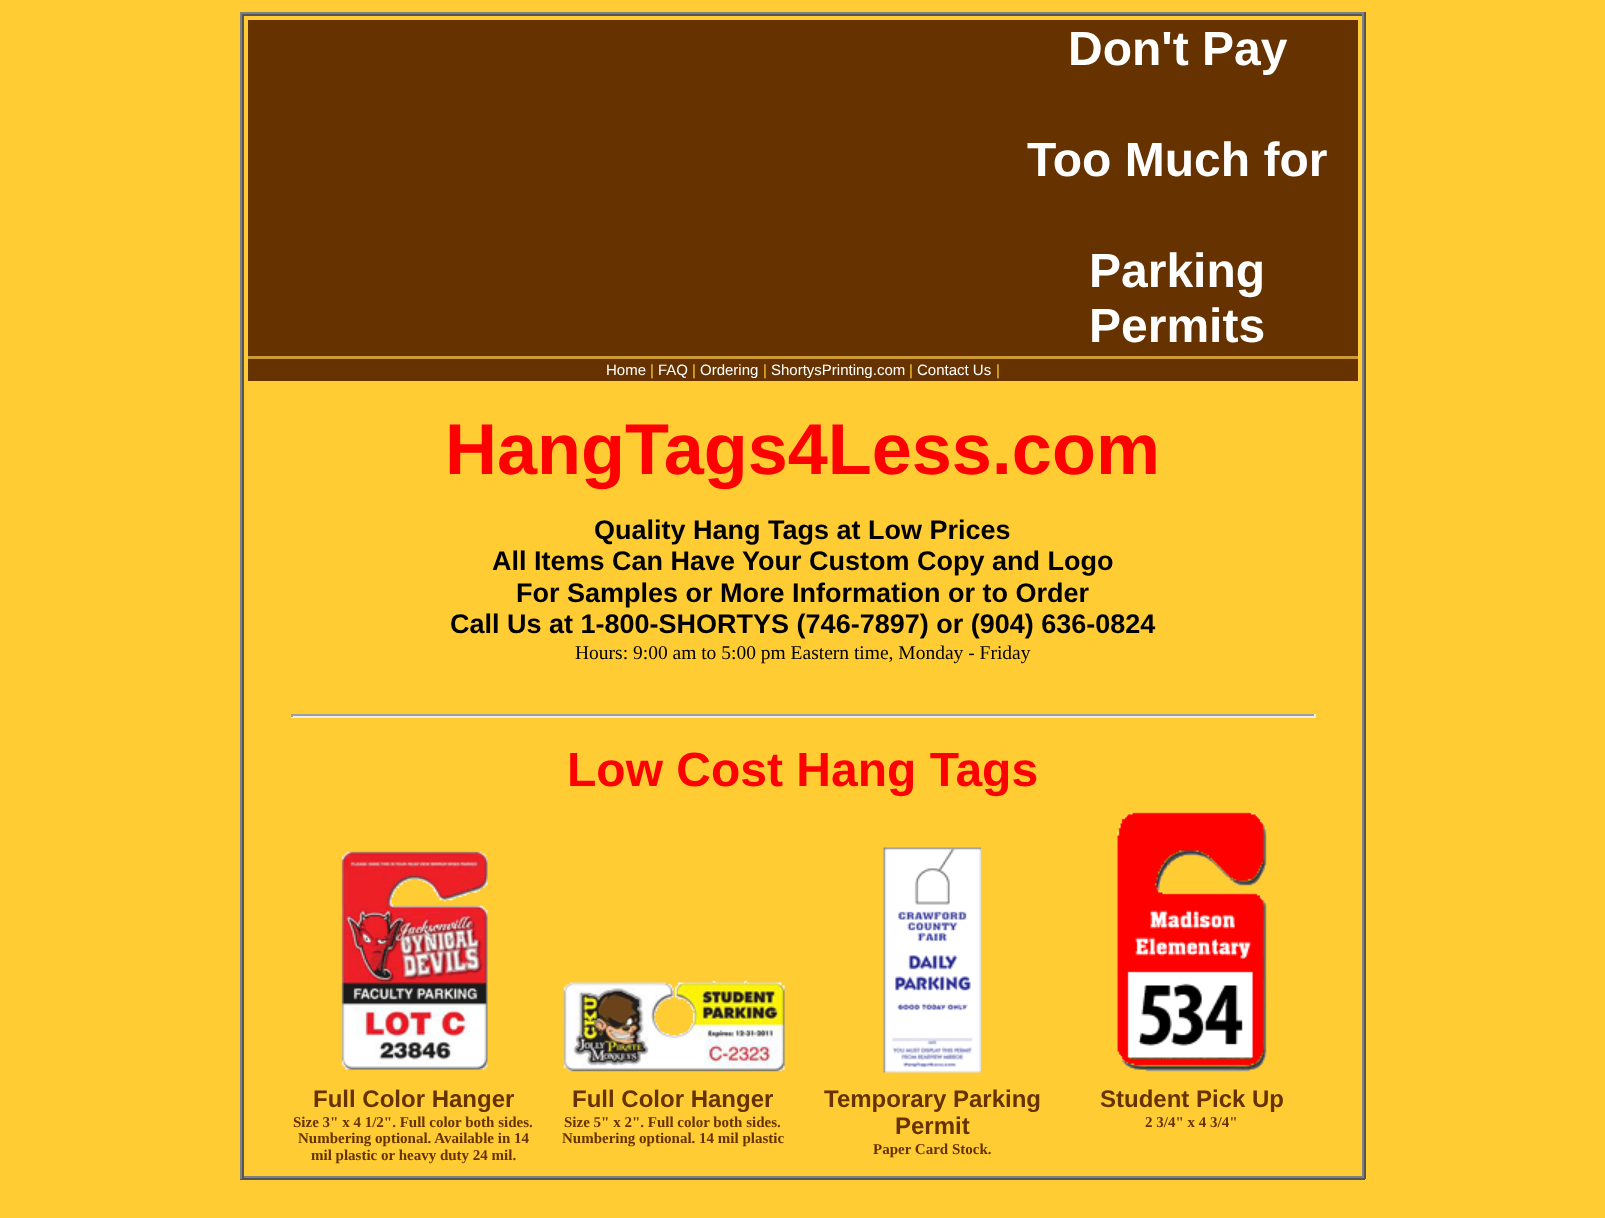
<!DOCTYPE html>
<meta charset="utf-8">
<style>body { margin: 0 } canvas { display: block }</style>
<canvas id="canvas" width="1605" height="1218"></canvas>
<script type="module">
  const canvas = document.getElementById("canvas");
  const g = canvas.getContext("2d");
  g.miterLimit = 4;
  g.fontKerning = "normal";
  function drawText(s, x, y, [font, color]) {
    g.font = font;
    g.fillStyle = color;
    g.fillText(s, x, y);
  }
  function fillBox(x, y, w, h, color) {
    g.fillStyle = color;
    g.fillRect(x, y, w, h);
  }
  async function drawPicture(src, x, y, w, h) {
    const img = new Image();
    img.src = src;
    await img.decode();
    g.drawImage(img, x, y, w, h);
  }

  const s1 = ["bold 48px Liberation Sans", "#FFFFFF"];
  const s2 = ["15px Liberation Sans", "#FFFFFF"];
  const s3 = ["15px Liberation Sans", "#FFCC33"];
  const s4 = ["bold 72px Liberation Sans", "#FF0000"];
  const s5 = ["bold 27px Liberation Sans", "#000000"];
  const s6 = ["19.5px Liberation Serif", "#000000"];
  const s7 = ["bold 48px Liberation Sans", "#FF0000"];
  const s8 = ["bold 24px Liberation Sans", "#663300"];
  const s9 = ["bold 15px Liberation Serif", "#663300"];

  fillBox(0, 0, 1605, 1218, "#FFCC33");
  fillBox(240, 12, 1125, 2, "#808080");
  fillBox(1364, 12, 2, 1167, "#555555");
  fillBox(240, 1178, 1125, 2, "#555555");
  fillBox(240, 12, 2, 1167, "#808080");
  fillBox(242, 14, 1122, 2, "#555555");
  fillBox(1362, 14, 2, 1164, "#808080");
  fillBox(242, 1176, 1122, 2, "#808080");
  fillBox(242, 14, 2, 1164, "#555555");
  fillBox(248, 20, 1110, 361, "#663300");
  drawText("Don't Pay", 1068, 65, s1);
  drawText("Too Much for", 1027, 176, s1);
  drawText("Parking", 1089, 287, s1);
  drawText("Permits", 1089, 342, s1);
  fillBox(248, 356, 1110, 3, "#CC9933");
  drawText("Home", 606, 375, s2);
  drawText("|", 650, 375, s3);
  drawText("FAQ", 658, 375, s2);
  drawText("|", 692, 375, s3);
  drawText("Ordering", 700, 375, s2);
  drawText("|", 763, 375, s3);
  drawText("ShortysPrinting.com", 771, 375, s2);
  drawText("|", 909, 375, s3);
  drawText("Contact Us", 917, 375, s2);
  drawText("|", 996, 375, s3);
  drawText("HangTags4Less.com", 445, 474, s4);
  drawText("Quality Hang Tags at Low Prices", 594, 539, s5);
  drawText("All Items Can Have Your Custom Copy and Logo", 492, 570, s5);
  drawText("For Samples or More Information or to Order", 516, 602, s5);
  drawText("Call Us at 1-800-SHORTYS (746-7897) or (904) 636-0824", 450, 633, s5);
  drawText("Hours: 9:00 am to 5:00 pm Eastern time, Monday - Friday", 575, 659, s6);
  fillBox(291, 714, 1025, 2, "#9F9F9F");
  fillBox(1314, 714, 2, 3, "#EEEEEE");
  fillBox(291, 716, 1025, 2, "#EEEEEE");
  fillBox(291, 714, 2, 3, "#9F9F9F");
  drawText("Low Cost Hang Tags", 567, 786, s7);
  await drawPicture("pic1.png", 341, 851, 147, 219);
  await drawPicture("pic2.png", 563, 980, 222, 92);
  await drawPicture("pic3.png", 883, 847, 98, 226);
  await drawPicture("pic4.png", 1117, 812, 150, 260);
  drawText("Full Color Hanger", 313, 1107, s8);
  drawText("Size 3\" x 4 1/2\". Full color both sides.", 293, 1127, s9);
  drawText("Numbering optional. Available in 14", 298, 1143, s9);
  drawText("mil plastic or heavy duty 24 mil.", 311, 1160, s9);
  drawText("Full Color Hanger", 572, 1107, s8);
  drawText("Size 5\" x 2\". Full color both sides.", 564, 1127, s9);
  drawText("Numbering optional. 14 mil plastic", 562, 1143, s9);
  drawText("Temporary Parking", 824, 1107, s8);
  drawText("Permit", 895, 1134, s8);
  drawText("Paper Card Stock.", 873, 1154, s9);
  drawText("Student Pick Up", 1100, 1107, s8);
  drawText("2 3/4\" x 4 3/4\"", 1145, 1127, s9);
</script>
